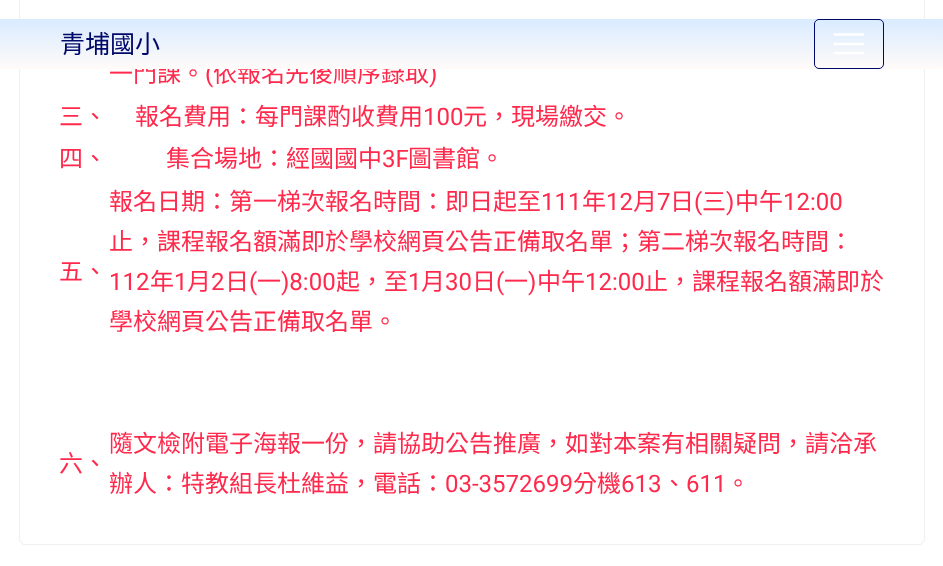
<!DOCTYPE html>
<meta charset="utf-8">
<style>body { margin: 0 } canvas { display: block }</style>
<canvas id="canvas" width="943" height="566"></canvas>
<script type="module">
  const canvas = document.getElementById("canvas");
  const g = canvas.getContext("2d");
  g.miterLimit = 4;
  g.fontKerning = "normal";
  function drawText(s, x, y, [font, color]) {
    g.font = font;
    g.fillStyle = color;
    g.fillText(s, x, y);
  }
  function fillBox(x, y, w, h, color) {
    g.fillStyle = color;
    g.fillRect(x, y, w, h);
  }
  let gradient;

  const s1 = ["24px Noto Sans CJK TC", "#FF294C"];
  const s2 = ["24px Roboto", "#FF294C"];
  const s3 = ["25px Noto Sans CJK TC", "#000869"];

  fillBox(0, 0, 943, 566, "#FFFFFF");
  g.beginPath();
  g.roundRect(19.5, -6.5, 905, 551, 5.5);
  g.strokeStyle = "#EFEFEF";
  g.stroke();
  drawText("一門課。", 109, 82, s1);
  drawText("(", 205, 82, s2);
  drawText("依報名先後順序錄取", 213, 82, s1);
  drawText(")", 429, 82, s2);
  gradient = g.createLinearGradient(472, 19, 472, 69);
  gradient.addColorStop(0, "#D9EBFF");
  gradient.addColorStop(1, "#FFFBF9");
  g.fillStyle = gradient;
  g.fillRect(0, 19, 943, 50);
  drawText("青埔國小", 60, 53, s3);
  g.beginPath();
  g.roundRect(814.5, 19.5, 69, 49, 4.5);
  g.strokeStyle = "#000869";
  g.stroke();
  g.beginPath();
  g.moveTo(834.5, 34.5);
  g.lineTo(863, 34.5);
  g.moveTo(834.5, 44);
  g.lineTo(863, 44);
  g.moveTo(834.5, 53);
  g.lineTo(863, 53);
  g.strokeStyle = "#FFFFFF";
  g.lineWidth = 2.3;
  g.lineCap = "round";
  g.stroke();
  drawText("三、", 59, 125, s1);
  drawText("報名費用：每門課酌收費用", 135, 125, s1);
  drawText("100", 423, 125, s2);
  drawText("元，現場繳交。", 463, 125, s1);
  drawText("四、", 59, 167, s1);
  drawText("集合場地：經國國中", 166, 167, s1);
  drawText("3F", 382, 167, s2);
  drawText("圖書館。", 408, 167, s1);
  drawText("五、", 59, 280, s1);
  drawText("報名日期：第一梯次報名時間：即日起至", 109, 210, s1);
  drawText("111", 541, 210, s2);
  drawText("年", 582, 210, s1);
  drawText("12", 606, 210, s2);
  drawText("月", 633, 210, s1);
  drawText("7", 657, 210, s2);
  drawText("日", 670, 210, s1);
  drawText("(", 694, 210, s2);
  drawText("三", 702, 210, s1);
  drawText(")", 726, 210, s2);
  drawText("中午", 735, 210, s1);
  drawText("12:00", 783, 210, s2);
  drawText("止，課程報名額滿即於學校網頁公告正備取名單；第二梯次報名時間：", 109, 250, s1);
  drawText("112", 109, 290, s2);
  drawText("年", 150, 290, s1);
  drawText("1", 174, 290, s2);
  drawText("月", 187, 290, s1);
  drawText("2", 211, 290, s2);
  drawText("日", 225, 290, s1);
  drawText("(", 249, 290, s2);
  drawText("一", 257, 290, s1);
  drawText(")8:00", 281, 290, s2);
  drawText("起，至", 336, 290, s1);
  drawText("1", 408, 290, s2);
  drawText("月", 421, 290, s1);
  drawText("30", 445, 290, s2);
  drawText("日", 472, 290, s1);
  drawText("(", 496, 290, s2);
  drawText("一", 504, 290, s1);
  drawText(")", 528, 290, s2);
  drawText("中午", 537, 290, s1);
  drawText("12:00", 585, 290, s2);
  drawText("止，課程報名額滿即於", 644, 290, s1);
  drawText("學校網頁公告正備取名單。", 109, 330, s1);
  drawText("六、", 59, 472, s1);
  drawText("隨文檢附電子海報一份，請協助公告推廣，如對本案有相關疑問，請洽承", 109, 452, s1);
  drawText("辦人：特教組長杜維益，電話：", 109, 492, s1);
  drawText("03-3572699", 445, 492, s2);
  drawText("分機", 573, 492, s1);
  drawText("613", 621, 492, s2);
  drawText("、", 662, 492, s1);
  drawText("611", 686, 492, s2);
  drawText("。", 726, 492, s1);
</script>
